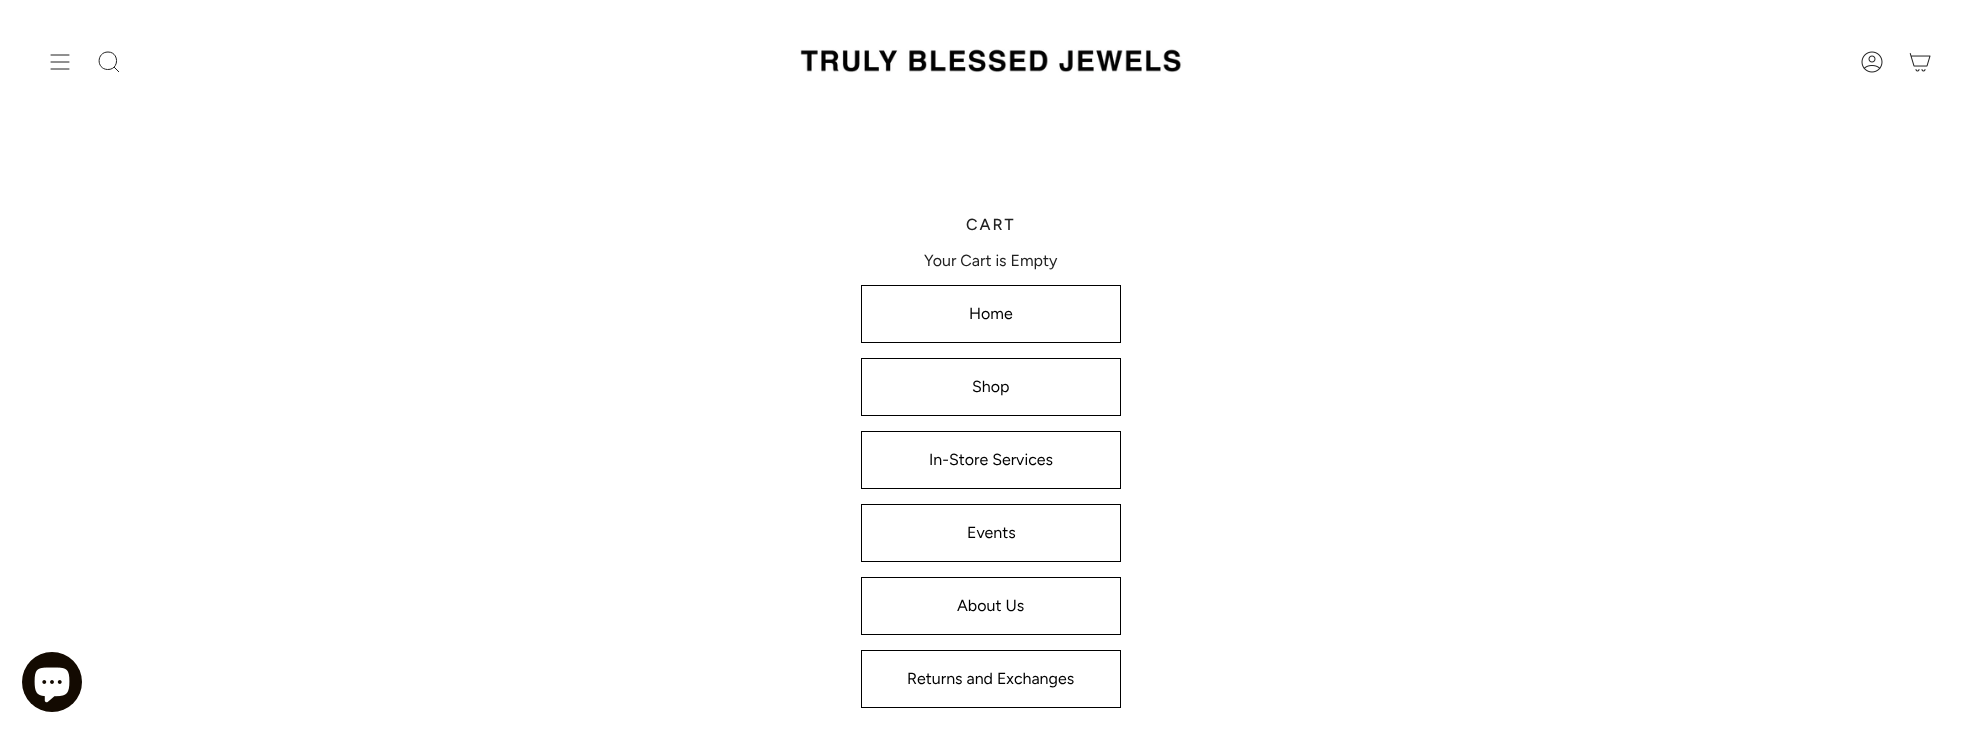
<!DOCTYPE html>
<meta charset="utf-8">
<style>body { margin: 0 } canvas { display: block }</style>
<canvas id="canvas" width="1982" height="733"></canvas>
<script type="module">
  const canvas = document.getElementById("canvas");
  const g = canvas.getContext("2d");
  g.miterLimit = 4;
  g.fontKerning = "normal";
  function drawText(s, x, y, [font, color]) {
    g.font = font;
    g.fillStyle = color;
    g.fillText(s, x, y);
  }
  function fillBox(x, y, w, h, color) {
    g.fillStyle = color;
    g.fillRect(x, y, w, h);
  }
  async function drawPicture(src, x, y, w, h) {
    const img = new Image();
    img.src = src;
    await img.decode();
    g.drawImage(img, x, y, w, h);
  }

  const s1 = ["500 16px Figtree", "#212121"];
  const s2 = ["16px Figtree", "#212121"];
  const s3 = ["16px Figtree", "#000000"];

  fillBox(0, 0, 1982, 733, "#FFFFFF");
  g.fillStyle = "#130A01";
  g.beginPath();
  g.arc(52, 682, 30, 0, Math.PI * 2);
  g.fill();
  await drawPicture("pic1.png", 34, 667, 36, 36);
  g.beginPath();
  g.moveTo(51, 55);
  g.lineTo(69, 55);
  g.moveTo(51, 62);
  g.lineTo(69, 62);
  g.moveTo(51, 69);
  g.lineTo(69, 69);
  g.strokeStyle = "#212121";
  g.lineCap = "round";
  g.lineJoin = "round";
  g.stroke();
  g.beginPath();
  g.moveTo(108, 52);
  g.bezierCurveTo(119.5, 52, 119.5, 70, 107.5, 69.5);
  g.bezierCurveTo(96, 69, 96.5, 52, 108, 52);
  g.closePath();
  g.moveTo(114, 67);
  g.lineTo(119, 72);
  g.lineCap = "butt";
  g.lineJoin = "miter";
  g.stroke();
  await drawPicture("pic2.png", 800, 49, 383, 24);
  await drawPicture("pic3.png", 1861, 51, 22, 22);
  await drawPicture("pic4.png", 1909, 53, 22, 19);
  g.letterSpacing = "2px";
  drawText("CART", 966, 230, s1);
  g.letterSpacing = "0px";
  drawText("Your Cart is Empty", 924, 266, s2);
  g.strokeStyle = "#000000";
  g.strokeRect(861.5, 285.5, 259, 57);
  drawText("Home", 969, 319, s3);
  g.strokeRect(861.5, 358.5, 259, 57);
  drawText("Shop", 972, 392, s3);
  g.strokeRect(861.5, 431.5, 259, 57);
  drawText("In-Store Services", 929, 465, s3);
  g.strokeRect(861.5, 504.5, 259, 57);
  drawText("Events", 967, 538, s3);
  g.strokeRect(861.5, 577.5, 259, 57);
  drawText("About Us", 957, 611, s3);
  g.strokeRect(861.5, 650.5, 259, 57);
  drawText("Returns and Exchanges", 907, 684, s3);
</script>
